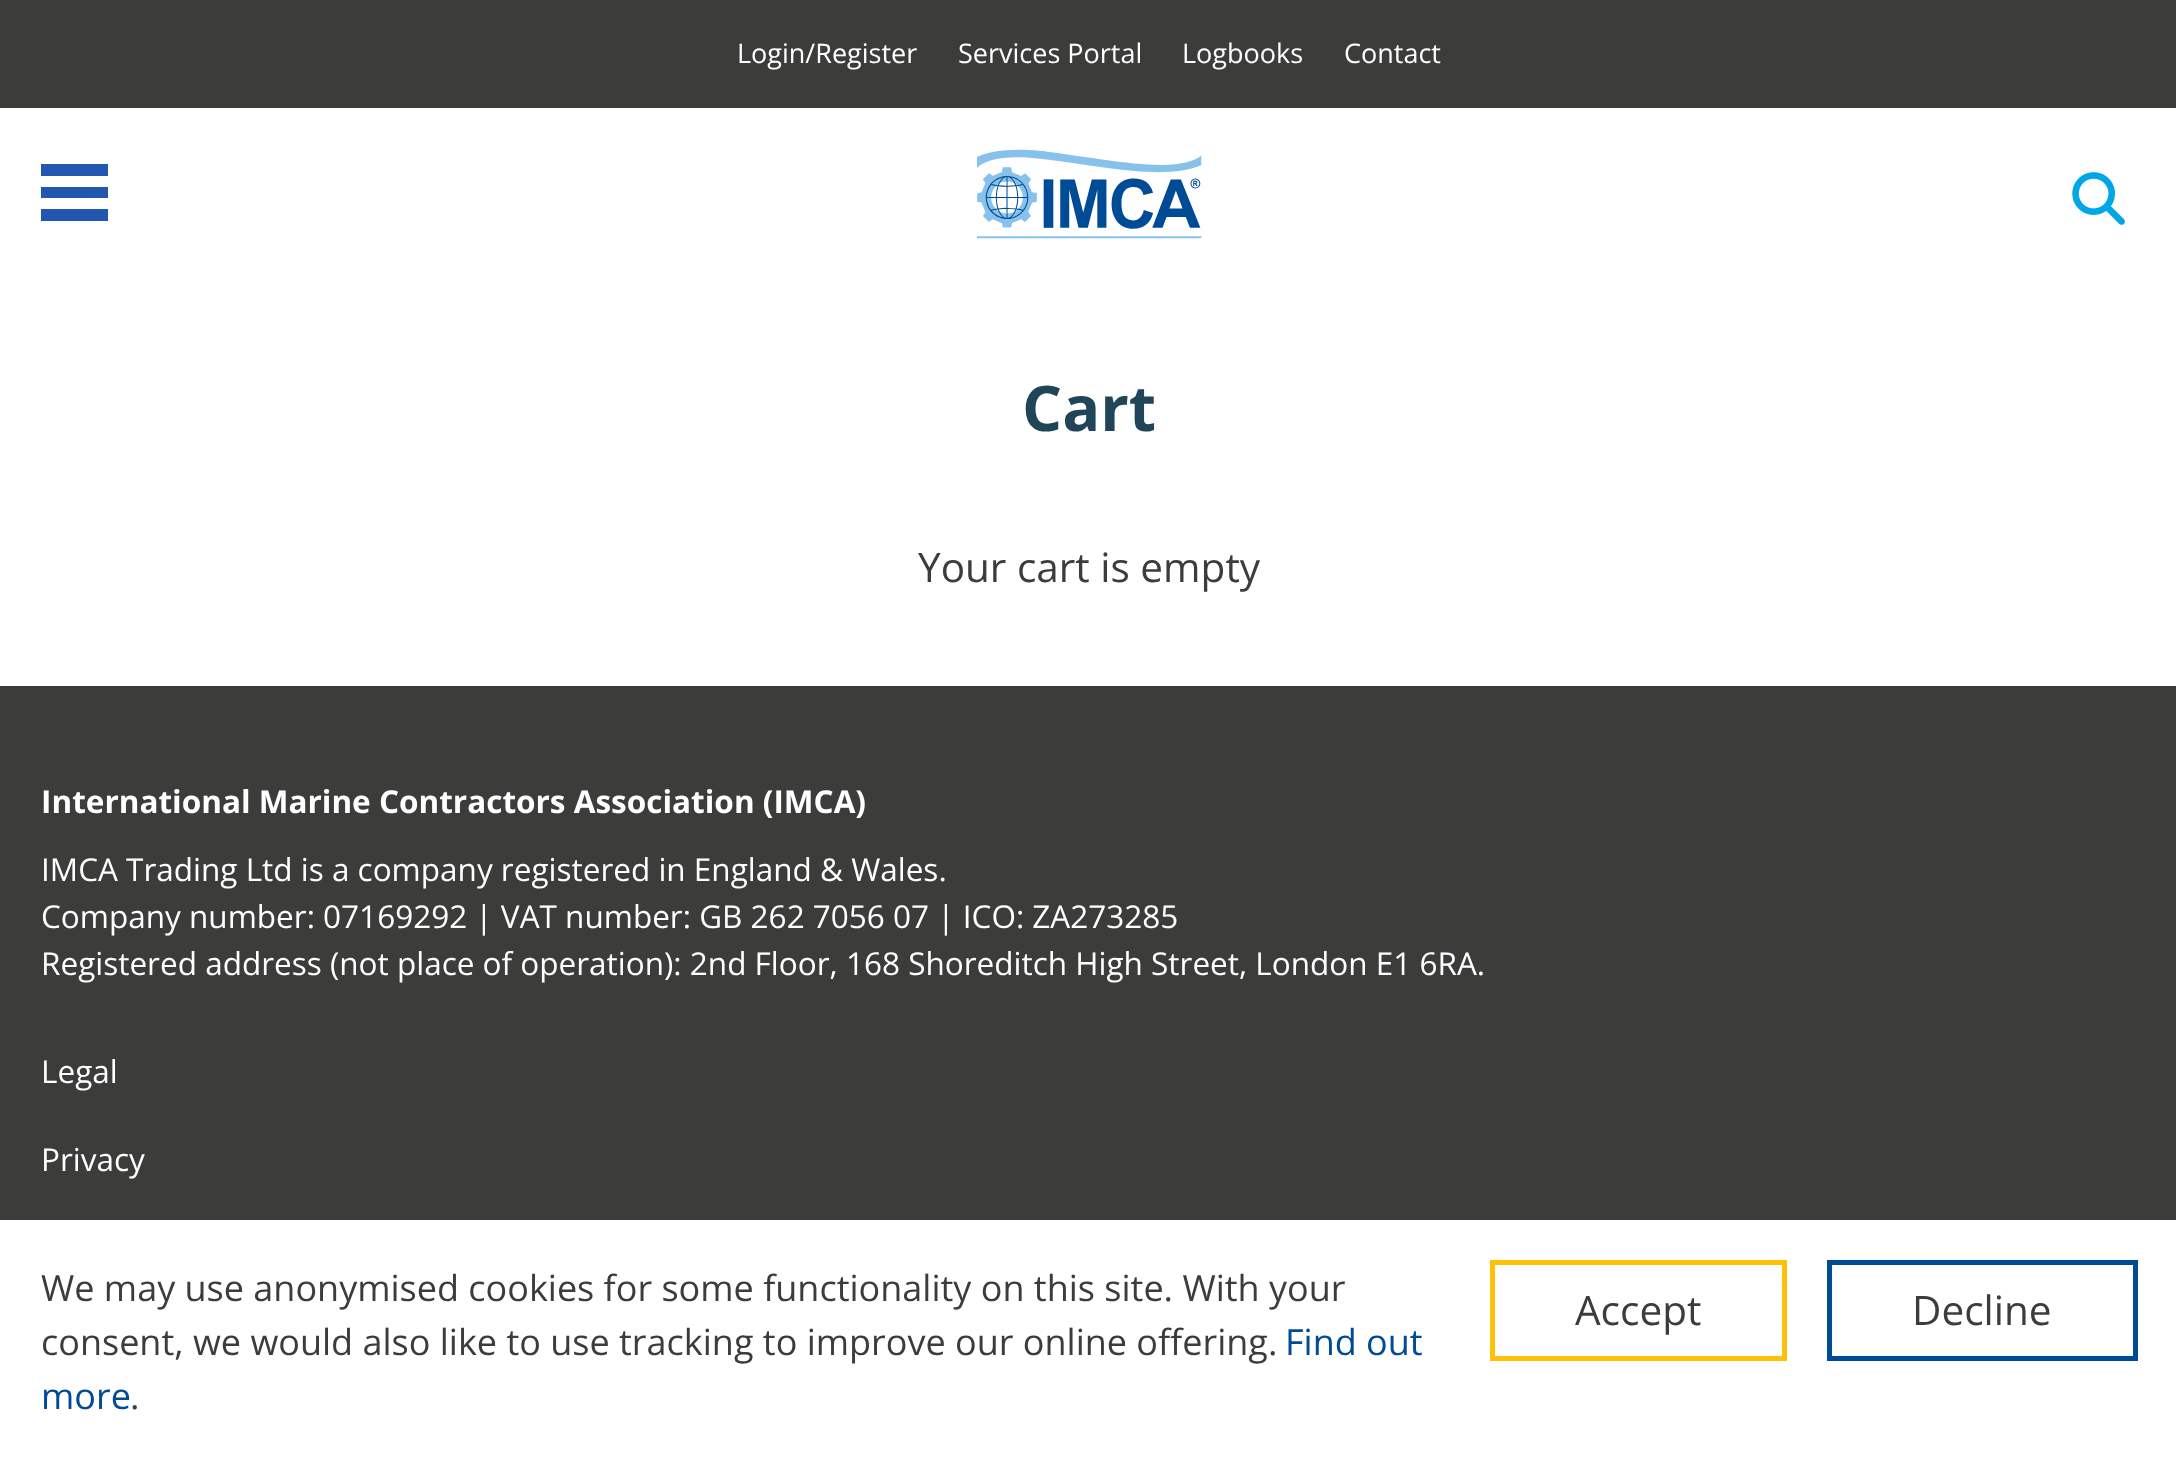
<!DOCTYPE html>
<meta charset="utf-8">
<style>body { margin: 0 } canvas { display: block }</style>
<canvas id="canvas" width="2176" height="1462"></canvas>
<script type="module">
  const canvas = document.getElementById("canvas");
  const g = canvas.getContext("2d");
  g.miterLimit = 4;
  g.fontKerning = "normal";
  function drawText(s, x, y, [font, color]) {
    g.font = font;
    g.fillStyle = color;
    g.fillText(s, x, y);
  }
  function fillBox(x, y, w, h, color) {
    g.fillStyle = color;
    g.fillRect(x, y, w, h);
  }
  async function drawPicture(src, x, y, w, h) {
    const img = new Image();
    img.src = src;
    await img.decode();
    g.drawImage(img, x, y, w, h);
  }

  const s1 = ["27px Open Sans", "#FFFFFF"];
  const s2 = ["bold 63px Open Sans", "#204558"];
  const s3 = ["40.5px Open Sans", "#3C3C3B"];
  const s4 = ["bold 31.5px Open Sans", "#FFFFFF"];
  const s5 = ["31.5px Open Sans", "#FFFFFF"];
  const s6 = ["36px Open Sans", "#3C3C3B"];
  const s7 = ["36px Open Sans", "#004B96"];

  fillBox(0, 0, 2176, 1462, "#FFFFFF");
  fillBox(0, 0, 2176, 108, "#3C3C3B");
  drawText("Login/Register", 737, 63, s1);
  drawText("Services Portal", 958, 63, s1);
  drawText("Logbooks", 1182, 63, s1);
  drawText("Contact", 1344, 63, s1);
  fillBox(41, 164, 67, 12, "#2157B1");
  fillBox(41, 187, 67, 11, "#2157B1");
  fillBox(41, 209, 67, 12, "#2157B1");
  await drawPicture("pic1.png", 977, 149, 225, 90);
  await drawPicture("pic2.png", 2072, 172, 53, 53);
  drawText("Cart", 1022, 431, s2);
  drawText("Your cart is empty", 918, 582, s3);
  fillBox(0, 686, 2176, 534, "#3C3C3B");
  drawText("International Marine Contractors Association (IMCA)", 41, 813, s4);
  drawText("IMCA Trading Ltd is a company registered in England & Wales.", 41, 881, s5);
  drawText("Company number: 07169292 | VAT number: GB 262 7056 07 | ICO: ZA273285", 41, 928, s5);
  drawText("Registered address (not place of operation): 2nd Floor, 168 Shoreditch High Street, London E1 6RA.", 41, 975, s5);
  drawText("Legal", 41, 1083, s5);
  drawText("Privacy", 41, 1171, s5);
  drawText("We may use anonymised cookies for some functionality on this site. With your", 41, 1301, s6);
  drawText("consent, we would also like to use tracking to improve our online offering.", 41, 1355, s6);
  drawText("Find out", 1285, 1355, s7);
  drawText("more", 41, 1409, s7);
  drawText(".", 130, 1409, s6);
  g.strokeStyle = "#FFC107";
  g.lineWidth = 5;
  g.strokeRect(1492.5, 1262.5, 292, 96);
  drawText("Accept", 1575, 1325, s3);
  g.strokeStyle = "#004B96";
  g.strokeRect(1829.5, 1262.5, 306, 96);
  drawText("Decline", 1912, 1325, s3);
</script>
